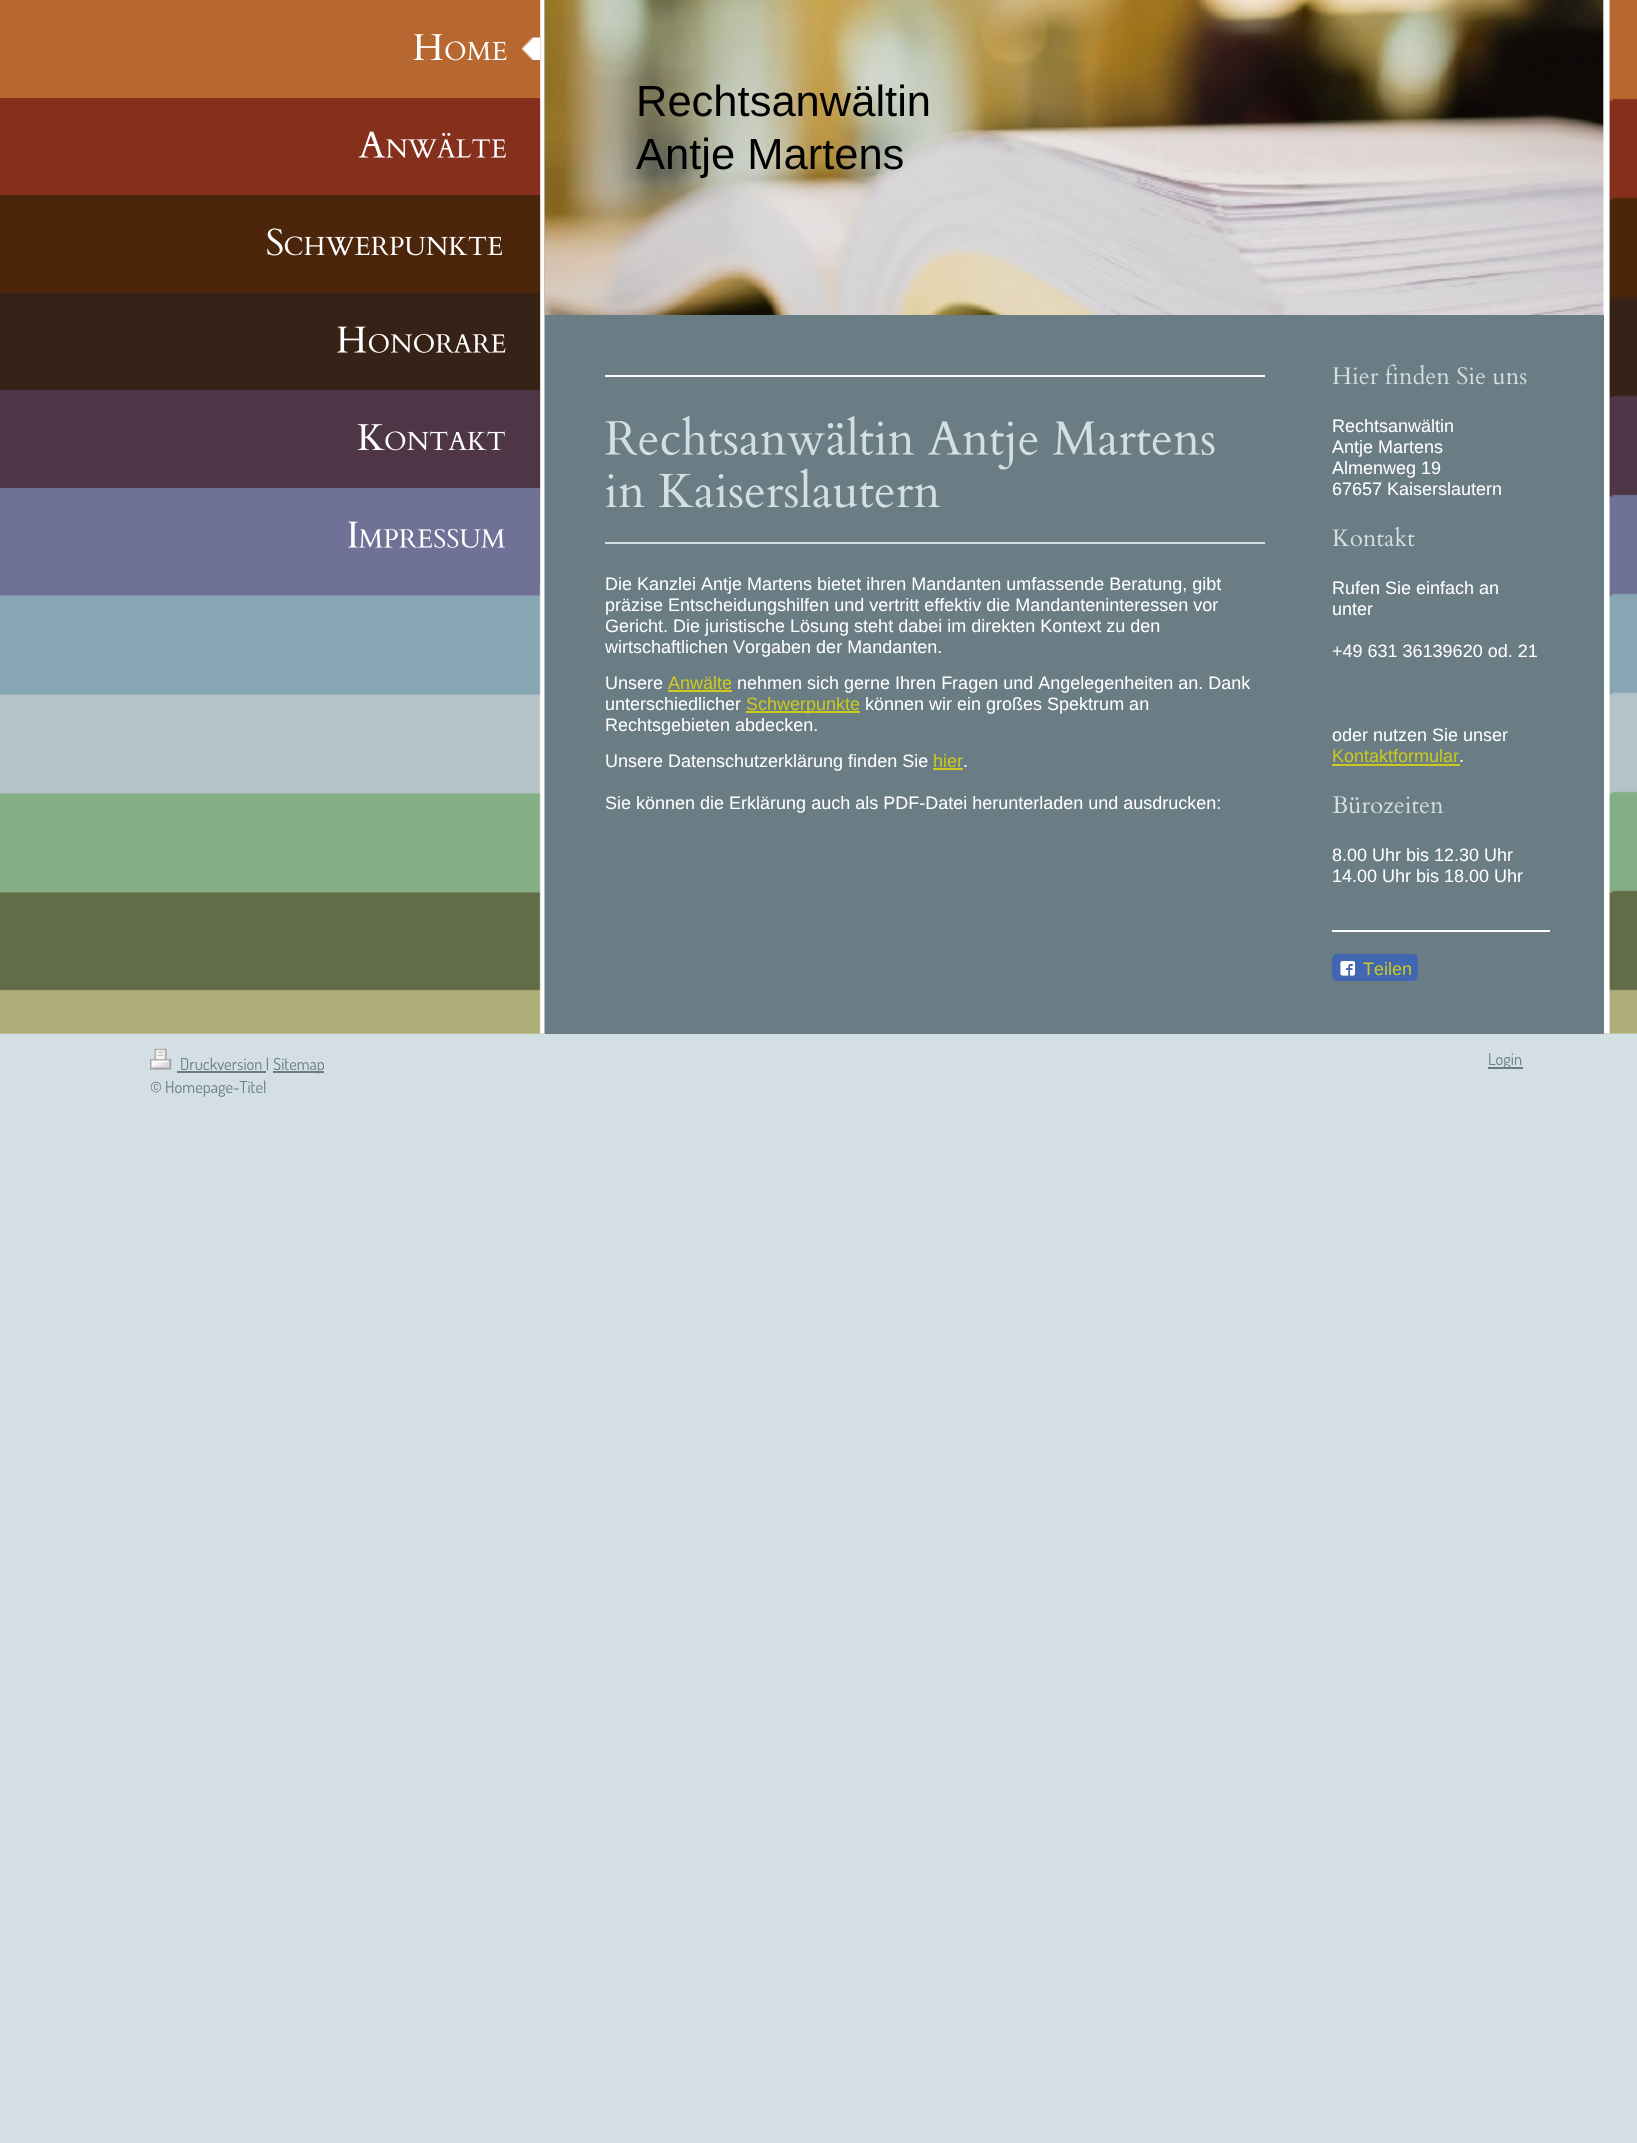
<!DOCTYPE html>
<meta charset="utf-8">
<style>body { margin: 0 } canvas { display: block }</style>
<canvas id="canvas" width="1637" height="2143"></canvas>
<script type="module">
  const canvas = document.getElementById("canvas");
  const g = canvas.getContext("2d");
  g.miterLimit = 4;
  g.fontKerning = "none";
  function drawText(s, x, y, [font, color]) {
    g.font = font;
    g.fillStyle = color;
    g.fillText(s, x, y);
  }
  function fillBox(x, y, w, h, color) {
    g.fillStyle = color;
    g.fillRect(x, y, w, h);
  }
  function fillRounded(x, y, w, h, r, color) {
    g.fillStyle = color;
    g.beginPath();
    g.roundRect(x, y, w, h, r);
    g.fill();
  }
  async function drawPicture(src, x, y, w, h) {
    const img = new Image();
    img.src = src;
    await img.decode();
    g.drawImage(img, x, y, w, h);
  }

  const s1 = ["43.5px Liberation Sans", "#000000"];
  const s2 = ["18px Liberation Sans", "#FFFFFF"];
  const s3 = ["18px Liberation Sans", "#CBCA1D"];
  const s4 = ["16.5px Dosis", "#6A7D84"];

  fillBox(0, 0, 1637, 2143, "#D3DFE3");
  await drawPicture("pic1.png", 0, 0, 1637, 1034);
  await drawPicture("pic2.png", 0, 0, 1613, 1034);
  fillBox(539, 0, 1, 98, "#B76830");
  await drawPicture("pic3.png", 522, 37, 18, 23);
  await drawPicture("pic4.png", 413, 34, 30, 26);
  await drawPicture("pic5.png", 445, 41, 62, 20);
  fillBox(0, 98, 540, 97, "#85301C");
  await drawPicture("pic6.png", 358, 131, 28, 27);
  await drawPicture("pic7.png", 386, 132, 120, 26);
  fillBox(0, 195, 540, 98, "#4B260B");
  await drawPicture("pic8.png", 267, 228, 16, 28);
  await drawPicture("pic9.png", 284, 236, 219, 20);
  fillBox(0, 293, 540, 97, "#362217");
  await drawPicture("pic10.png", 337, 326, 30, 27);
  await drawPicture("pic11.png", 368, 333, 138, 20);
  fillBox(0, 390, 540, 98, "#4E3646");
  await drawPicture("pic12.png", 357, 424, 28, 26);
  await drawPicture("pic13.png", 385, 431, 120, 20);
  fillBox(0, 488, 540, 97, "#6F7197");
  await drawPicture("pic14.png", 348, 521, 10, 27);
  await drawPicture("pic15.png", 358, 528, 147, 20);
  fillBox(545, 315, 1059, 719, "#6A7D84");
  fillBox(1603, 0, 1, 315, "#EEEEEE");
  await drawPicture("pic16.png", 544, 0, 1060, 315);
  drawText("Rechtsanwältin", 636, 116, s1);
  drawText("Antje Martens", 636, 169, s1);
  fillBox(605, 375, 660, 2, "#FFFFFF");
  fillBox(605, 542, 660, 2, "#D3DFE3");
  await drawPicture("pic17.png", 605, 416, 610, 54);
  await drawPicture("pic18.png", 606, 468, 334, 40);
  drawText("Die Kanzlei Antje Martens bietet ihren Mandanten umfassende Beratung, gibt", 605, 590, s2);
  drawText("präzise Entscheidungshilfen und vertritt effektiv die Mandanteninteressen vor", 605, 611, s2);
  drawText("Gericht. Die juristische Lösung steht dabei im direkten Kontext zu den", 605, 632, s2);
  drawText("wirtschaftlichen Vorgaben der Mandanten. ", 605, 653, s2);
  drawText("Unsere", 605, 689, s2);
  drawText("Anwälte", 668, 689, s3);
  fillBox(668, 690, 64, 2, "#CBCA1D");
  drawText("nehmen sich gerne Ihren Fragen und Angelegenheiten an. Dank", 737, 689, s2);
  drawText("unterschiedlicher", 605, 710, s2);
  fillBox(746, 711, 114, 2, "#CBCA1D");
  drawText("Schwerpunkte", 746, 710, s3);
  drawText("können wir ein großes Spektrum an", 865, 710, s2);
  drawText("Rechtsgebieten abdecken.", 605, 731, s2);
  drawText("Unsere Datenschutzerklärung finden Sie", 605, 767, s2);
  drawText("hier", 933, 767, s3);
  fillBox(933, 768, 30, 2, "#CBCA1D");
  drawText(".", 963, 767, s2);
  drawText("Sie können die Erklärung auch als PDF-Datei herunterladen und ausdrucken:", 605, 809, s2);
  await drawPicture("pic19.png", 1332, 364, 195, 21);
  drawText("Rechtsanwältin", 1332, 432, s2);
  drawText("Antje Martens", 1332, 453, s2);
  drawText("Almenweg 19", 1332, 474, s2);
  drawText("67657 Kaiserslautern", 1332, 495, s2);
  await drawPicture("pic20.png", 1332, 526, 83, 21);
  drawText("Rufen Sie einfach an", 1332, 594, s2);
  drawText("unter", 1332, 615, s2);
  drawText("+49 631 36139620 od. 21", 1332, 657, s2);
  drawText("oder nutzen Sie unser", 1332, 741, s2);
  drawText("Kontaktformular", 1332, 762, s3);
  fillBox(1332, 764, 128, 2, "#CBCA1D");
  drawText(".", 1459, 762, s2);
  await drawPicture("pic21.png", 1332, 796, 112, 18);
  drawText("8.00 Uhr bis 12.30 Uhr", 1332, 861, s2);
  drawText("14.00 Uhr bis 18.00 Uhr", 1332, 882, s2);
  fillBox(1332, 930, 218, 2, "#FFFFFF");
  fillRounded(1332, 954, 86, 27, 5, "#4267B2");
  await drawPicture("pic22.png", 1340, 961, 15, 15);
  drawText("Teilen", 1363, 975, s3);
  await drawPicture("pic23.png", 150, 1048, 22, 22);
  drawText("Druckversion |", 180, 1070, s4);
  fillBox(177, 1071, 89, 2, "#6A7D84");
  fillBox(273, 1071, 51, 2, "#6A7D84");
  drawText("Sitemap", 273, 1070, s4);
  drawText("© Homepage-Titel", 150, 1093, s4);
  fillBox(1488, 1067, 35, 2, "#6A7D84");
  drawText("Login", 1488, 1065, s4);
</script>
